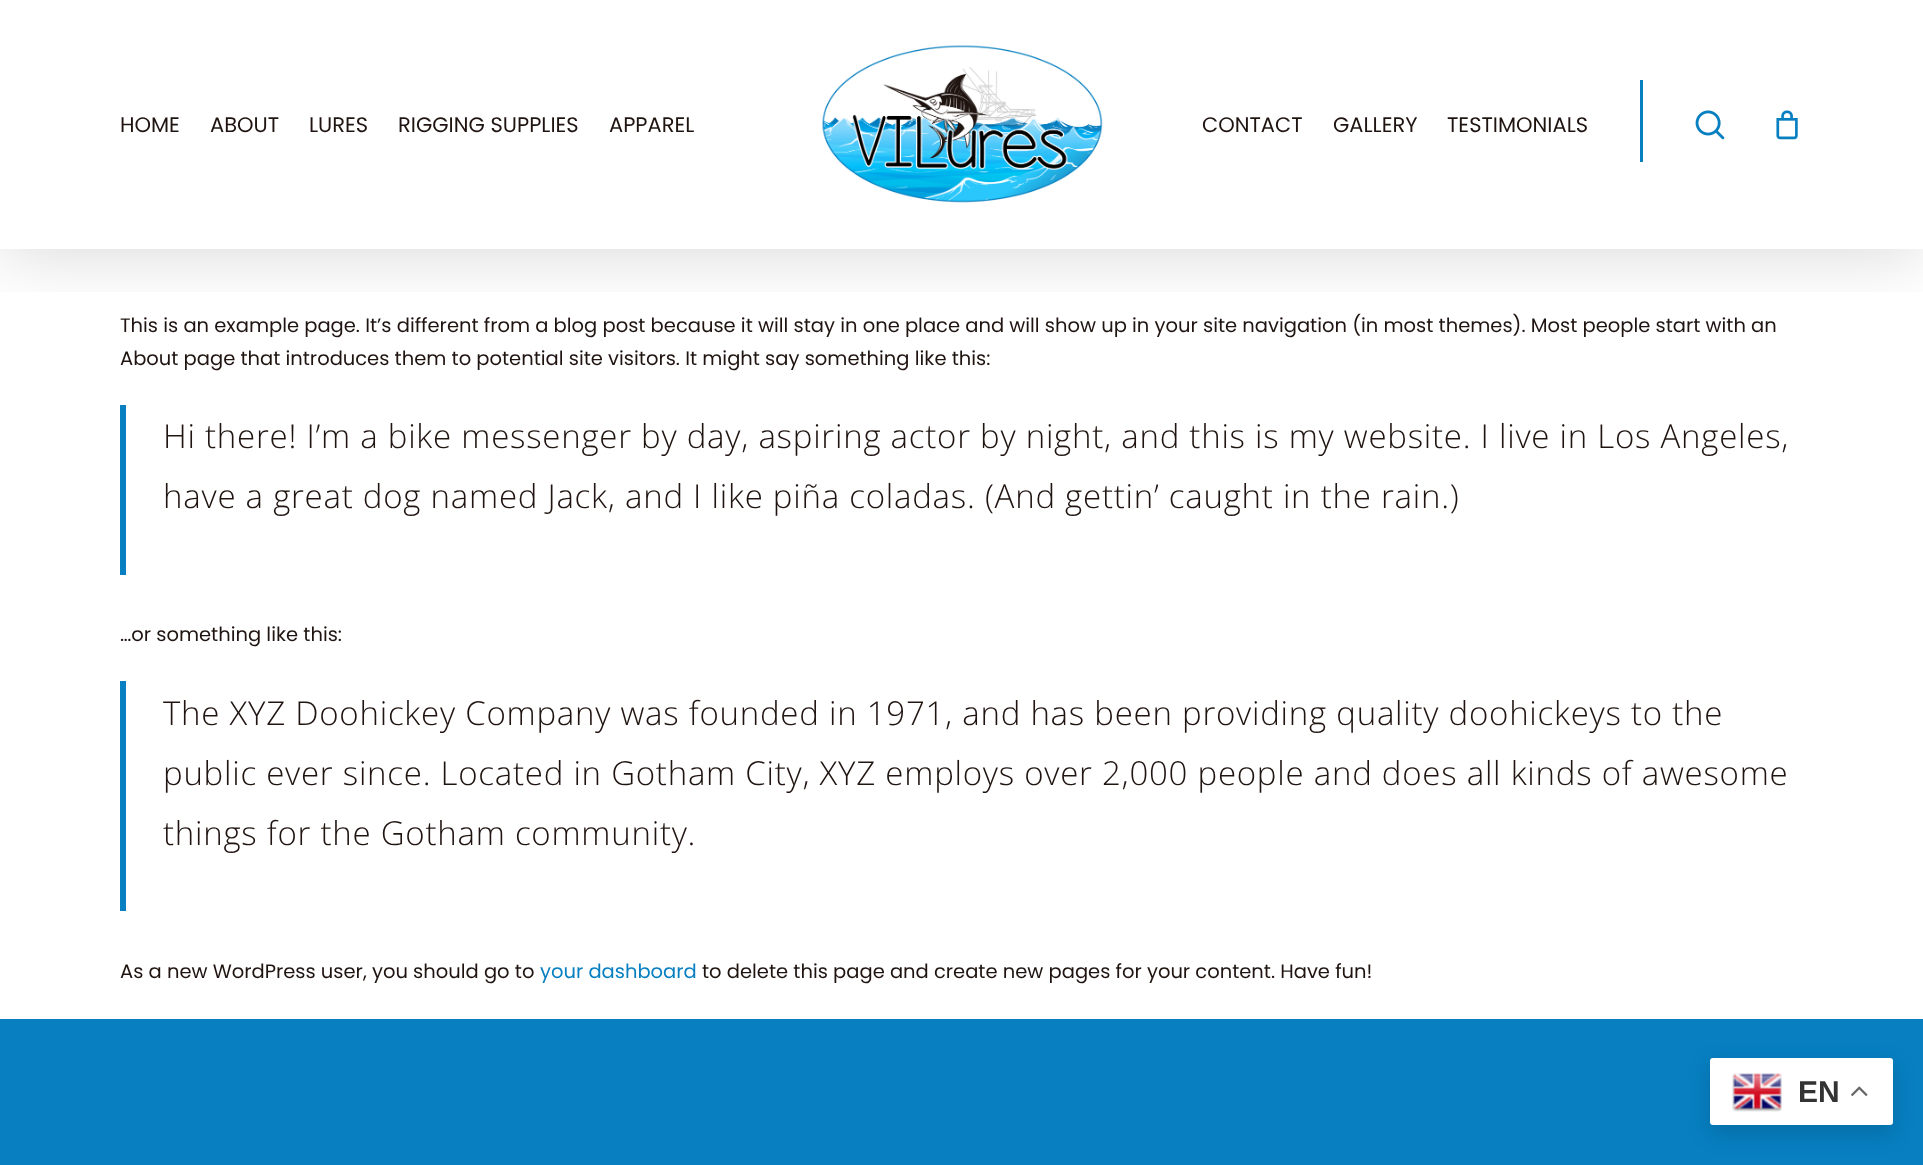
<!DOCTYPE html>
<meta charset="utf-8">
<style>body { margin: 0 } canvas { display: block }</style>
<canvas id="canvas" width="1923" height="1165"></canvas>
<script type="module">
  const canvas = document.getElementById("canvas");
  const g = canvas.getContext("2d");
  g.miterLimit = 4;
  g.fontKerning = "normal";
  function drawText(s, x, y, [font, color]) {
    g.font = font;
    g.fillStyle = color;
    g.fillText(s, x, y);
  }
  function fillBox(x, y, w, h, color) {
    g.fillStyle = color;
    g.fillRect(x, y, w, h);
  }
  function fillRounded(x, y, w, h, r, color) {
    g.fillStyle = color;
    g.beginPath();
    g.roundRect(x, y, w, h, r);
    g.fill();
  }
  async function drawPicture(src, x, y, w, h) {
    const img = new Image();
    img.src = src;
    await img.decode();
    g.drawImage(img, x, y, w, h);
  }

  const s1 = ["21px Poppins", "#1F1410"];
  const s2 = ["19.5px Poppins", "#1F1410"];
  const s3 = ["300 33px Open Sans", "#1F1410"];
  const s4 = ["19.5px Poppins", "#077FC1"];
  const s5 = ["bold 30px Liberation Sans", "#333333"];

  fillBox(0, 0, 1923, 1165, "#FFFFFF");
  g.save();
  g.beginPath();
  g.rect(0, 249, 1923, 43);
  g.clip();
  g.fillStyle = "rgba(0, 0, 0, 0.15)";
  g.filter = "blur(34px)";
  g.beginPath();
  g.rect(0, 5, 1923, 249);
  g.fill();
  g.filter = "none";
  g.restore();
  drawText("HOME", 120, 132, s1);
  drawText("ABOUT", 210, 132, s1);
  drawText("LURES", 309, 132, s1);
  drawText("RIGGING SUPPLIES", 398, 132, s1);
  drawText("APPAREL", 609, 132, s1);
  await drawPicture("pic1.png", 822, 45, 281, 158);
  drawText("CONTACT", 1202, 132, s1);
  drawText("GALLERY", 1333, 132, s1);
  drawText("TESTIMONIALS", 1447, 132, s1);
  fillBox(1640, 80, 3, 82, "#077FC1");
  await drawPicture("pic2.png", 1695, 110, 30, 30);
  await drawPicture("pic3.png", 1776, 110, 22, 30);
  drawText("This is an example page. It’s different from a blog post because it will stay in one place and will show up in your site navigation (in most themes). Most people start with an", 120, 332, s2);
  drawText("About page that introduces them to potential site visitors. It might say something like this:", 120, 365, s2);
  fillBox(120, 405, 6, 170, "#077FC1");
  g.letterSpacing = "0.75px";
  drawText("Hi there! I’m a bike messenger by day, aspiring actor by night, and this is my website. I live in Los Angeles,", 163, 448, s3);
  drawText("have a great dog named Jack, and I like piña coladas. (And gettin’ caught in the rain.)", 163, 508, s3);
  g.letterSpacing = "0px";
  drawText("…or something like this:", 120, 641, s2);
  fillBox(120, 681, 6, 230, "#077FC1");
  g.letterSpacing = "0.75px";
  drawText("The XYZ Doohickey Company was founded in 1971, and has been providing quality doohickeys to the", 163, 725, s3);
  drawText("public ever since. Located in Gotham City, XYZ employs over 2,000 people and does all kinds of awesome", 163, 785, s3);
  drawText("things for the Gotham community.", 163, 845, s3);
  g.letterSpacing = "0px";
  drawText("As a new WordPress user, you should go to", 120, 978, s2);
  drawText("your dashboard", 540, 978, s4);
  drawText("to delete this page and create new pages for your content. Have fun!", 702, 978, s2);
  fillBox(0, 1019, 1923, 146, "#077FC1");
  g.fillStyle = "rgba(0, 0, 0, 0.15)";
  g.filter = "blur(11px)";
  g.beginPath();
  g.roundRect(1710, 1065, 183, 68, 3);
  g.fill();
  g.filter = "none";
  fillRounded(1710, 1058, 183, 67, 3, "#FFFFFF");
  await drawPicture("pic4.png", 1732, 1073, 50, 39);
  drawText("EN", 1798, 1102, s5);
  await drawPicture("pic5.png", 1851, 1086, 17, 10);
</script>
